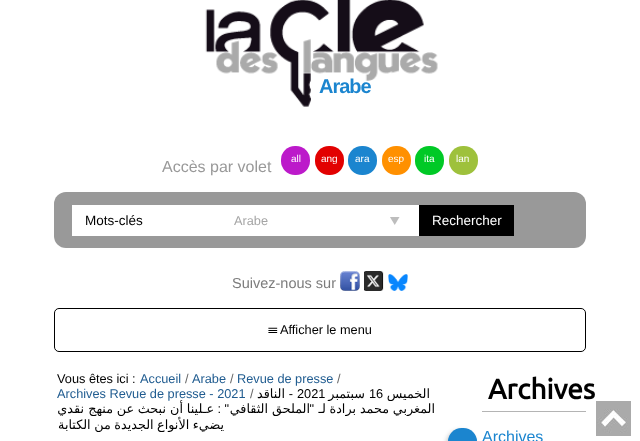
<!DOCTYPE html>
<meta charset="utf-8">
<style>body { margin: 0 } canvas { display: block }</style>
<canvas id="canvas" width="640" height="441"></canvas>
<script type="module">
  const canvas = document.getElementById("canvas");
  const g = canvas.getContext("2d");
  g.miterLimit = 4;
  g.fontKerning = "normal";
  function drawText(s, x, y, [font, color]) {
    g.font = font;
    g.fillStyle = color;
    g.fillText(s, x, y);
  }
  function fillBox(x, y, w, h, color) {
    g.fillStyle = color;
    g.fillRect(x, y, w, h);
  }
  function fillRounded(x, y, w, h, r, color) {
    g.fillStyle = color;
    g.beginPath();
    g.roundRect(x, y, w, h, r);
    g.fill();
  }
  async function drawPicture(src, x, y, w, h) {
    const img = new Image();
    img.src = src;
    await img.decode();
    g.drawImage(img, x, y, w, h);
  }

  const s1 = ["bold 20px Liberation Sans", "#1B85CF"];
  const s2 = ["16px Liberation Sans", "#999999"];
  const s3 = ["10px Liberation Sans", "#FFFFFF"];
  const s4 = ["13.5px Liberation Sans", "#000000"];
  const s5 = ["12.75px Liberation Sans", "#A5A5A5"];
  const s6 = ["13.5px Liberation Sans", "#FFFFFF"];
  const s7 = ["14.5px Liberation Sans", "#7C7C7C"];
  const s8 = ["12.75px FreeSans", "#000000"];
  const s9 = ["12.75px Liberation Sans", "#000000"];
  const s10 = ["12.75px Liberation Sans", "#205C90"];
  const s11 = ["12.75px Liberation Sans", "#666666"];
  const s12 = ["12.75px DejaVu Sans", "#000000"];
  const s13 = ["bold 28px Ubuntu", "#000000"];
  const s14 = ["16px Liberation Sans", "#1B85CF"];

  fillBox(0, 0, 640, 441, "#FFFFFF");
  await drawPicture("pic1.png", 205, 0, 233, 107);
  g.letterSpacing = "-1px";
  drawText("Arabe", 319, 93, s1);
  g.letterSpacing = "0px";
  drawText("Accès par volet", 162, 172, s2);
  fillRounded(281, 146, 29, 29, 14, "#BC1ACA");
  drawText("all", 291, 162, s3);
  fillRounded(315, 146, 29, 29, 14, "#E20101");
  drawText("ang", 321, 162, s3);
  fillRounded(348, 146, 29, 29, 14, "#1B85CF");
  drawText("ara", 355, 162, s3);
  fillRounded(382, 146, 29, 29, 14, "#FF9000");
  drawText("esp", 388, 162, s3);
  fillRounded(415, 146, 29, 29, 14, "#00C926");
  drawText("ita", 424, 162, s3);
  fillRounded(449, 146, 29, 29, 14, "#9EC13C");
  drawText("lan", 456, 162, s3);
  fillRounded(54, 192, 532, 56, 12, "#999999");
  fillBox(72, 205, 347, 31, "#FFFFFF");
  drawText("Mots-clés", 85, 225, s4);
  await drawPicture("pic2.png", 390, 217, 10, 8);
  drawText("Arabe", 234, 225, s5);
  fillBox(419, 205, 95, 31, "#000000");
  drawText("Rechercher", 432, 225, s6);
  drawText("Suivez-nous sur", 232, 288, s7);
  await drawPicture("pic3.png", 340, 271, 20, 20);
  await drawPicture("pic4.png", 364, 271, 20, 20);
  await drawPicture("pic5.png", 388, 274, 20, 17);
  g.beginPath();
  g.roundRect(54.5, 308.5, 531, 43, 4.5);
  g.strokeStyle = "#000000";
  g.stroke();
  drawText("☰", 268, 334, s8);
  drawText("Afficher le menu", 280, 334, s9);
  drawText("Vous êtes ici :", 57, 383, s9);
  drawText("Accueil", 140, 383, s10);
  drawText("/", 185, 383, s11);
  drawText("Arabe", 192, 383, s10);
  drawText("/", 230, 383, s11);
  drawText("Revue de presse", 237, 383, s10);
  drawText("/", 337, 383, s11);
  drawText("Archives Revue de presse - 2021", 57, 398, s10);
  drawText("/", 250, 398, s11);
  g.direction = "rtl";
  drawText("الناقد", 285, 398, s12);
  drawText("-", 293, 398, s9);
  g.direction = "ltr";
  drawText("2021", 297, 398, s9);
  g.direction = "rtl";
  drawText("سبتمبر", 365, 398, s12);
  g.direction = "ltr";
  drawText("16", 369, 398, s9);
  g.direction = "rtl";
  drawText("الخميس", 430, 398, s12);
  drawText("نقدي", 84, 413, s12);
  drawText("منهج", 113, 413, s12);
  drawText("عن", 134, 413, s12);
  drawText("نبحث", 166, 413, s12);
  drawText("أن", 183, 413, s12);
  drawText("عـلينا", 214, 413, s12);
  drawText("\" :", 229, 413, s9);
  drawText("الثقافي", 268, 413, s12);
  drawText("الملحق", 310, 413, s12);
  drawText("\"", 314, 413, s9);
  drawText("لـ", 326, 413, s12);
  drawText("برادة", 356, 413, s12);
  drawText("محمد", 389, 413, s12);
  drawText("المغربي", 435, 413, s12);
  g.wordSpacing = "-0.5px";
  drawText("يضيء الأنواع الجديدة من الكتابة", 224, 429, s12);
  fillBox(482, 411, 104, 1, "#B4B4B4");
  g.wordSpacing = "0px";
  g.direction = "ltr";
  drawText("Archives", 488, 399, s13);
  g.fillStyle = "rgba(0, 0, 0, 0.2)";
  g.filter = "blur(2px)";
  g.beginPath();
  g.roundRect(446, 430, 29, 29, 14);
  g.fill();
  g.filter = "none";
  fillRounded(448, 428, 29, 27, 14, "#1B85CF");
  drawText("Archives", 482, 442, s14);
  await drawPicture("pic6.png", 596, 401, 35, 35);
</script>
